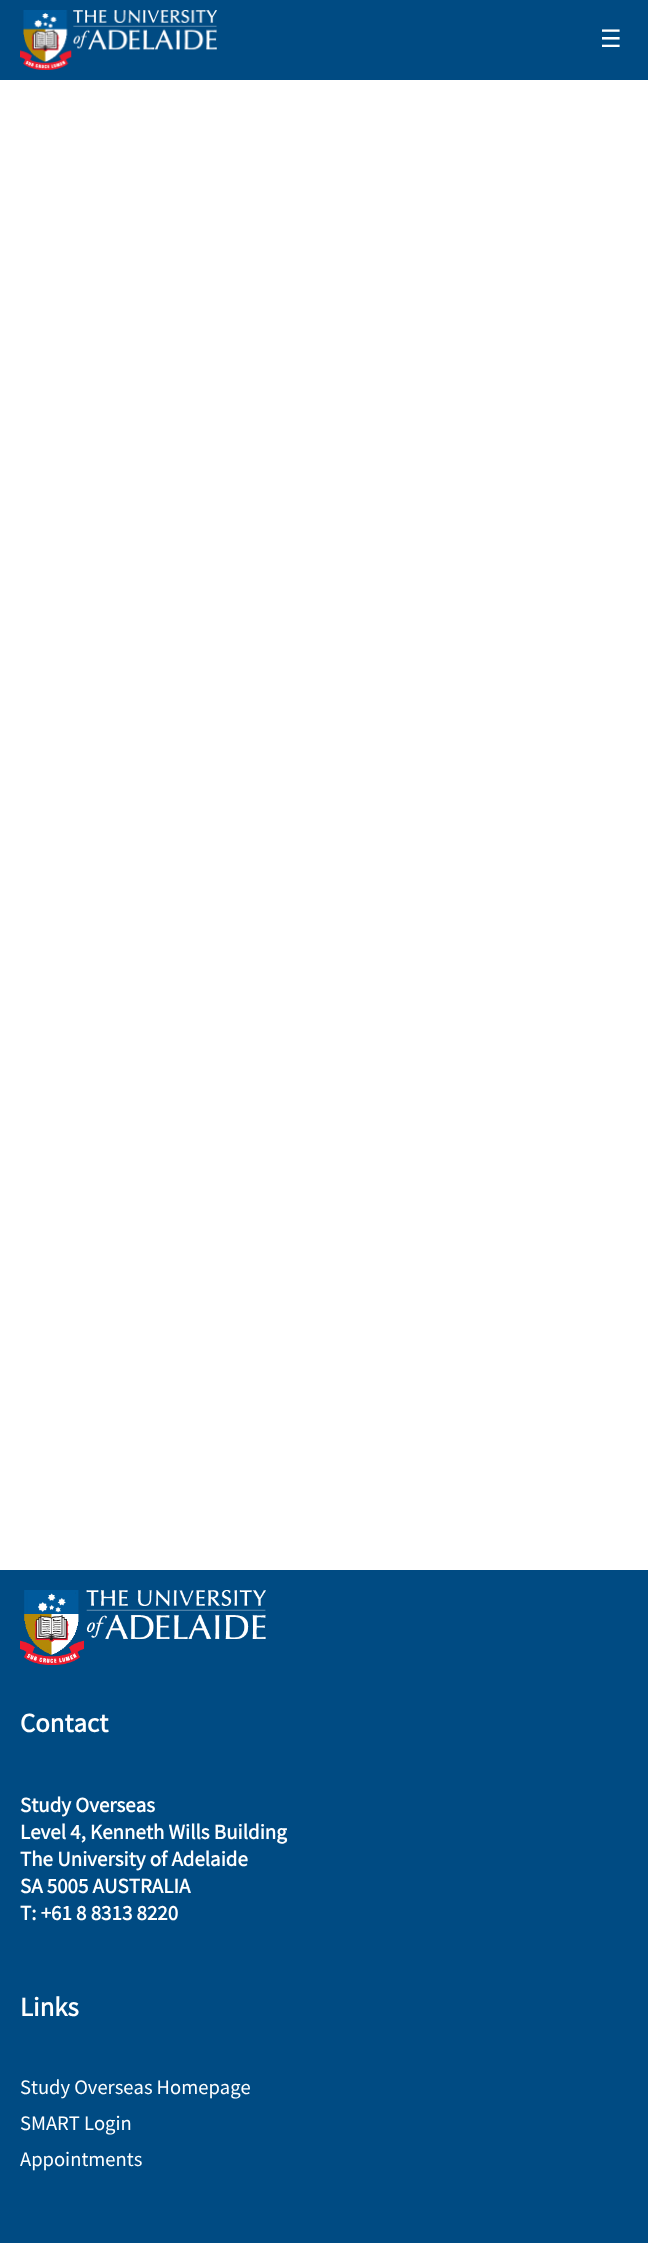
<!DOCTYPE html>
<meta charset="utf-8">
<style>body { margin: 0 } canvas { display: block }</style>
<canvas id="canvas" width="648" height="2243"></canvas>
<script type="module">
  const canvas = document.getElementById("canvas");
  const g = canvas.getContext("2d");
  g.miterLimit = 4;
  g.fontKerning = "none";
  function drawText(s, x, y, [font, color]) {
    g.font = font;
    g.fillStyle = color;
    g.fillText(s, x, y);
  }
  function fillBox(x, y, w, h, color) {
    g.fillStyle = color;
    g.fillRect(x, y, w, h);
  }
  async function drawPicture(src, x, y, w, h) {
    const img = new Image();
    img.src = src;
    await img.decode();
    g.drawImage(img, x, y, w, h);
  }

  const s1 = ["24px DejaVu Sans", "#FFFFFF"];
  const s2 = ["bold 24px Noto Sans JP", "#FFFFFF"];
  const s3 = ["bold 18.75px Noto Sans JP", "#FFFFFF"];
  const s4 = ["18.4px Noto Sans JP", "#FFFFFF"];

  fillBox(0, 0, 648, 2243, "#FFFFFF");
  fillBox(0, 0, 648, 80, "#004B83");
  await drawPicture("pic1.png", 20, 10, 197, 60);
  drawText("☰", 600, 47, s1);
  fillBox(0, 1570, 648, 673, "#004B83");
  await drawPicture("pic2.png", 20, 1590, 246, 75);
  drawText("Contact", 20, 1732, s2);
  drawText("Study Overseas", 20, 1812, s3);
  drawText("Level 4, Kenneth Wills Building", 20, 1839, s3);
  drawText("The University of Adelaide", 20, 1866, s3);
  drawText("SA 5005 AUSTRALIA", 20, 1893, s3);
  drawText("T: +61 8 8313 8220", 20, 1920, s3);
  drawText("Links", 20, 2016, s2);
  drawText("Study Overseas Homepage", 20, 2094, s4);
  drawText("SMART Login", 20, 2130, s4);
  drawText("Appointments", 20, 2166, s4);
</script>
